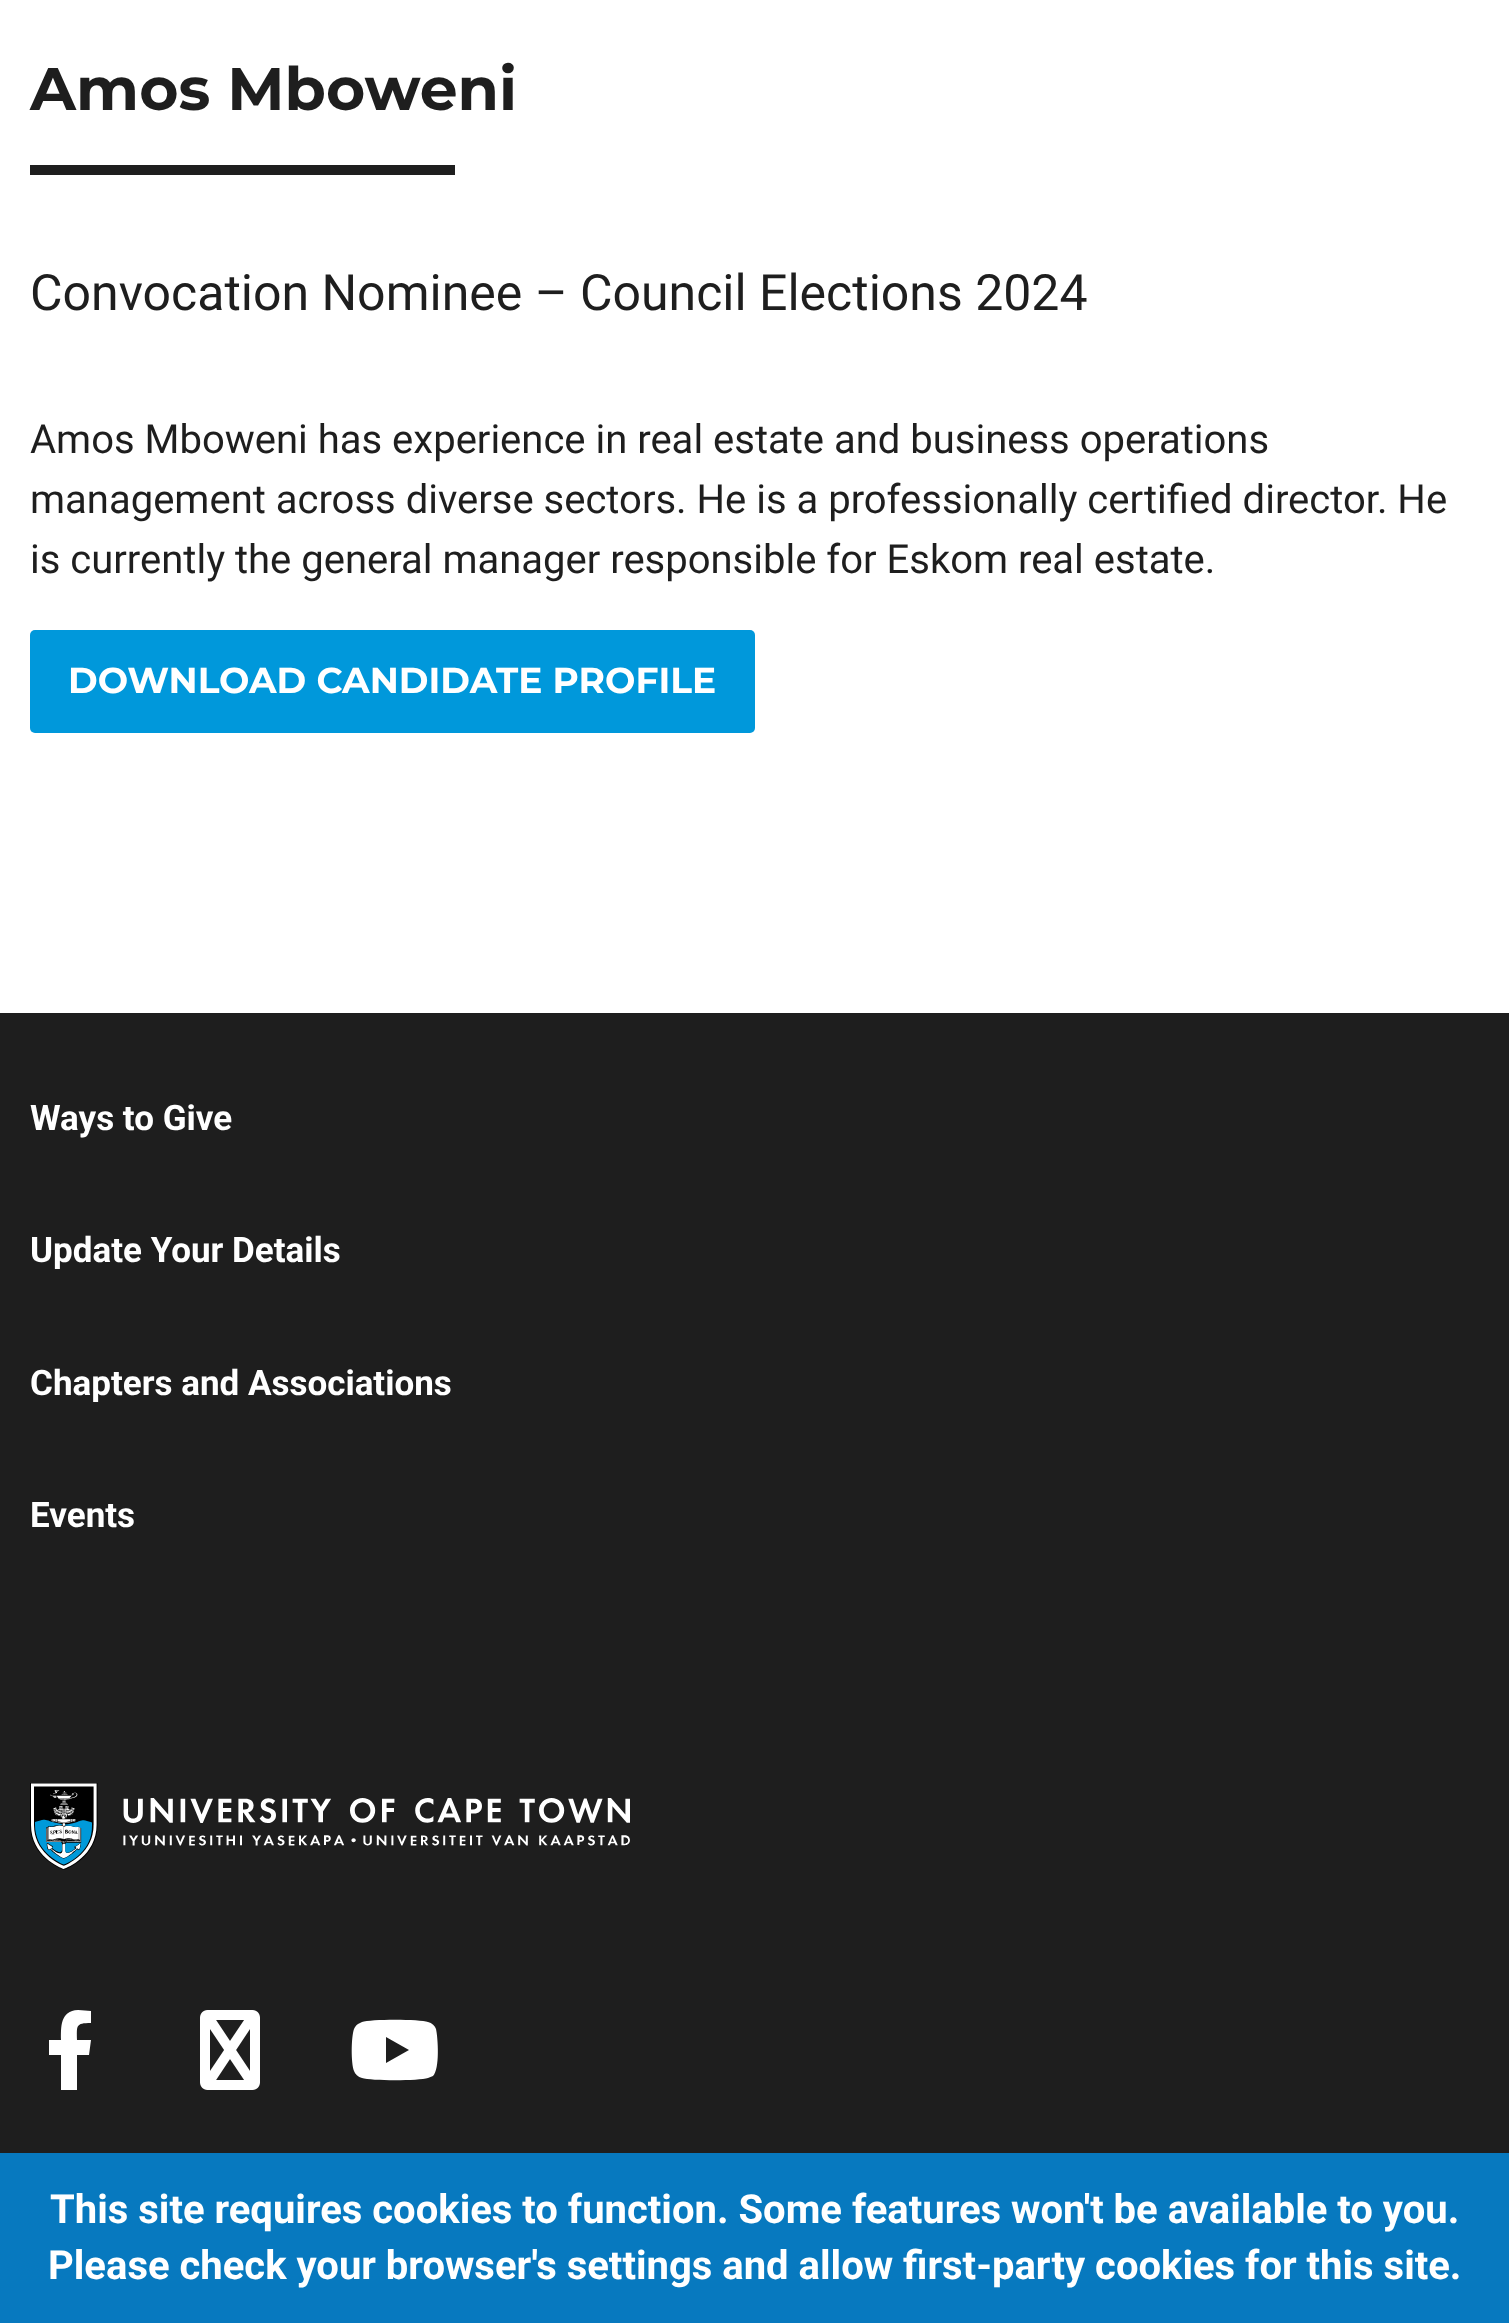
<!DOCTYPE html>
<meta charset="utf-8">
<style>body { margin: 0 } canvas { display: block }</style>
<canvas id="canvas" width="1509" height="2323"></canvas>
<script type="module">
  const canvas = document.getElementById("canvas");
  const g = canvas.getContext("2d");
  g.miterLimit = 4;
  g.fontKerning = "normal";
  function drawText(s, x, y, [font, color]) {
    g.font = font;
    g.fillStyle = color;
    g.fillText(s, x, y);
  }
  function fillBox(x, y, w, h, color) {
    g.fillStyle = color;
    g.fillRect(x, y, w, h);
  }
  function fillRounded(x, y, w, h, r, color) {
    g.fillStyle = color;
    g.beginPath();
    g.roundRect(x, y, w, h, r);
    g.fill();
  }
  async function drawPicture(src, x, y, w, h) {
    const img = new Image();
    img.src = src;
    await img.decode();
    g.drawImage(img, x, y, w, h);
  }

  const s1 = ["bold 60px Montserrat", "#1E1E1E"];
  const s2 = ["50px Roboto", "#1E1E1E"];
  const s3 = ["40px Roboto", "#1E1E1E"];
  const s4 = ["bold 36px Montserrat", "#FFFFFF"];
  const s5 = ["bold 35px Roboto", "#FFFFFF"];
  const s6 = ["bold 40px Roboto", "#FFFFFF"];

  fillBox(0, 0, 1509, 2323, "#FFFFFF");
  drawText("Amos Mboweni", 30, 110, s1);
  fillBox(30, 165, 425, 10, "#1E1E1E");
  drawText("Convocation Nominee – Council Elections 2024", 30, 310, s2);
  drawText("Amos Mboweni has experience in real estate and business operations", 30, 453, s3);
  drawText("management across diverse sectors. He is a professionally certified director. He", 30, 513, s3);
  drawText("is currently the general manager responsible for Eskom real estate.", 30, 573, s3);
  fillRounded(30, 630, 725, 103, 5, "#0098DB");
  drawText("DOWNLOAD CANDIDATE PROFILE", 68, 693, s4);
  fillBox(0, 1013, 1509, 1140, "#1E1E1E");
  drawText("Ways to Give", 30, 1130, s5);
  drawText("Update Your Details", 30, 1262, s5);
  drawText("Chapters and Associations", 30, 1395, s5);
  drawText("Events", 30, 1527, s5);
  await drawPicture("pic1.png", 30, 1783, 600, 87);
  g.beginPath();
  g.moveTo(89, 2055);
  g.lineTo(91, 2040);
  g.lineTo(77, 2040);
  g.bezierCurveTo(77, 2026, 75, 2023, 91, 2023);
  g.lineTo(91, 2011);
  g.bezierCurveTo(87, 2011, 83, 2010, 78, 2010);
  g.bezierCurveTo(60, 2011, 61, 2027, 61, 2040);
  g.lineTo(49, 2040);
  g.lineTo(49, 2055);
  g.lineTo(61, 2055);
  g.lineTo(61, 2090);
  g.lineTo(77, 2090);
  g.lineTo(77, 2055);
  g.closePath();
  g.fill();
  await drawPicture("pic2.png", 200, 2010, 60, 80);
  g.beginPath();
  g.moveTo(436, 2029);
  g.bezierCurveTo(435, 2026, 432, 2023, 428, 2022);
  g.bezierCurveTo(420, 2019, 370, 2019, 362, 2022);
  g.lineTo(358, 2024);
  g.bezierCurveTo(356, 2025, 355, 2027, 354, 2029);
  g.bezierCurveTo(351, 2038, 351, 2063, 354, 2071);
  g.bezierCurveTo(355, 2074, 358, 2077, 362, 2078);
  g.bezierCurveTo(371, 2081, 419, 2081, 428, 2078);
  g.lineTo(433, 2076);
  g.bezierCurveTo(440, 2069, 438, 2038, 436, 2029);
  g.closePath();
  g.moveTo(386, 2063);
  g.lineTo(386, 2037);
  g.lineTo(409, 2050);
  g.closePath();
  g.fill();
  fillBox(0, 2153, 1509, 170, "#0779BF");
  drawText("This site requires cookies to function. Some features won't be available to you.", 50, 2223, s6);
  drawText("Please check your browser's settings and allow first-party cookies for this site.", 48, 2279, s6);
</script>
